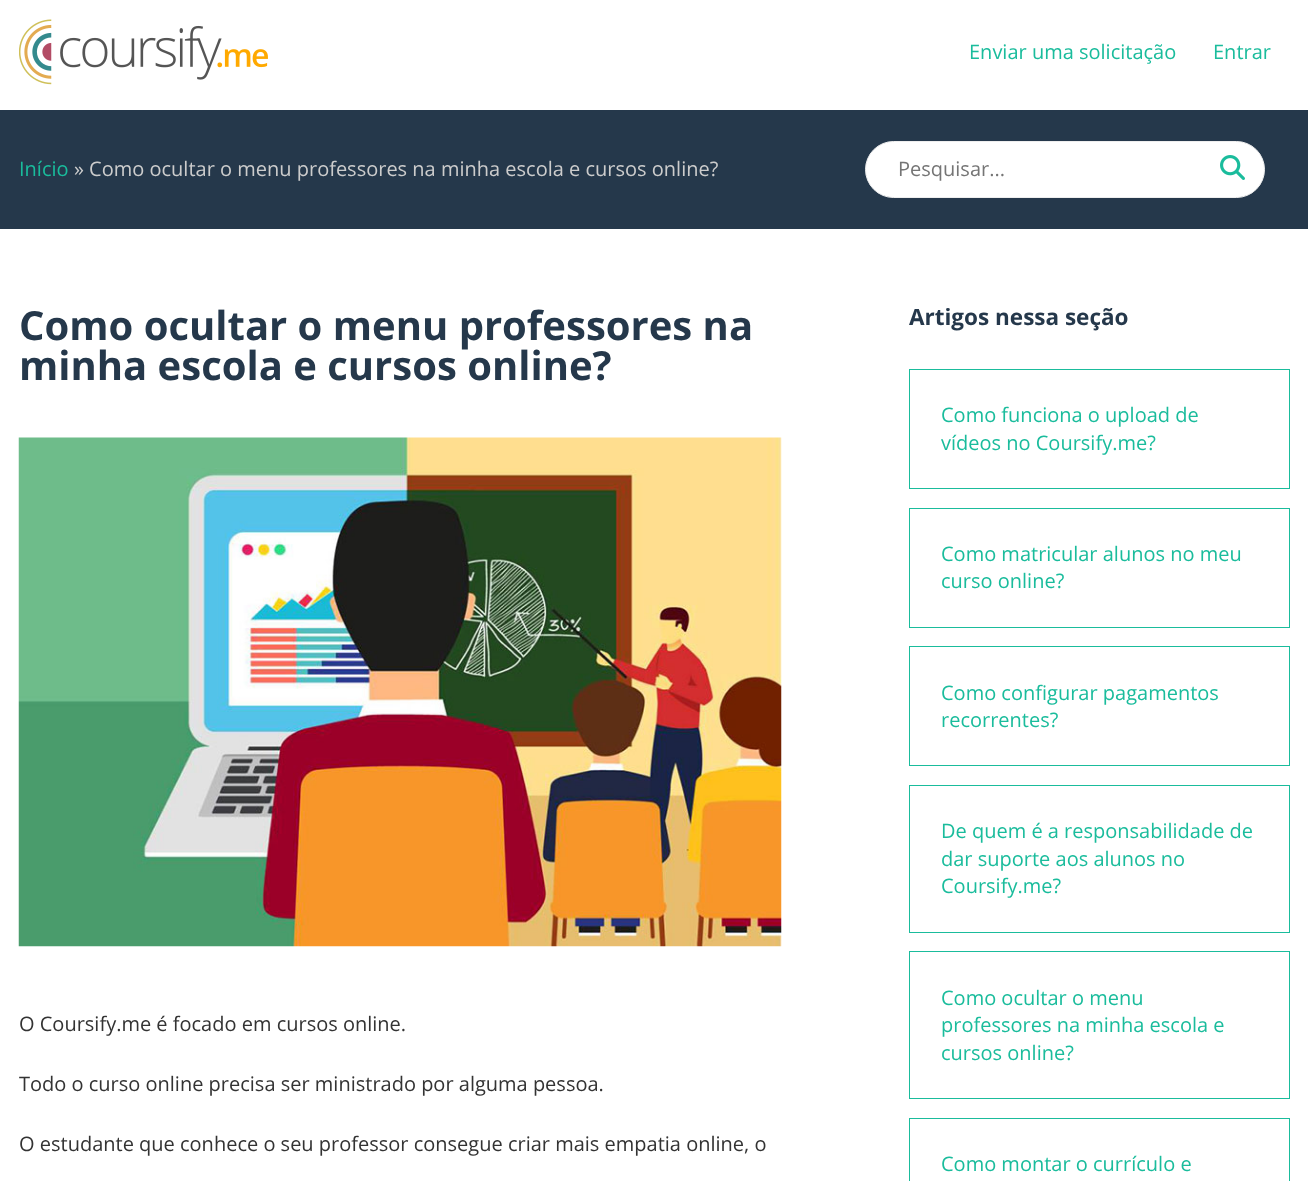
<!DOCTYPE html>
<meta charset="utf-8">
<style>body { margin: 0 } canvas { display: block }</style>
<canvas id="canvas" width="1308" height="1181"></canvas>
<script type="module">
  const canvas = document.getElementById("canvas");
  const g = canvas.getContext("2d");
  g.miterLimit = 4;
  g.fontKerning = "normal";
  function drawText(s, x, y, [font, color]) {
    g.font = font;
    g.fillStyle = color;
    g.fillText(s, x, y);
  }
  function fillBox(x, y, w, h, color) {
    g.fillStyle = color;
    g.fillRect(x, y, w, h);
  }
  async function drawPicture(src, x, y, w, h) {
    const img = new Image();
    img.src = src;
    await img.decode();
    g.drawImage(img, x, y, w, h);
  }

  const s1 = ["20px Open Sans", "#1ABC9C"];
  const s2 = ["20px Open Sans", "#CCCCCC"];
  const s3 = ["20px Open Sans", "#757575"];
  const s4 = ["bold 40px Open Sans", "#25384B"];
  const s5 = ["20px Open Sans", "#333333"];
  const s6 = ["bold 22.5px Open Sans", "#25384B"];

  fillBox(0, 0, 1308, 1181, "#FFFFFF");
  await drawPicture("pic1.png", 19, 19, 249, 66);
  drawText("Enviar uma solicitação", 969, 59, s1);
  drawText("Entrar", 1213, 59, s1);
  fillBox(0, 110, 1308, 119, "#25384B");
  drawText("Início", 19, 176, s1);
  drawText("» Como ocultar o menu professores na minha escola e cursos online?", 74, 176, s2);
  g.fillStyle = "#FFFFFF";
  g.beginPath();
  g.roundRect(865.5, 141.5, 399, 56, 28);
  g.fill();
  g.strokeStyle = "#EEEEEE";
  g.stroke();
  drawText("Pesquisar...", 898, 176, s3);
  await drawPicture("pic2.png", 1220, 155, 25, 25);
  drawText("Como ocultar o menu professores na", 19, 340, s4);
  drawText("minha escola e cursos online?", 19, 380, s4);
  await drawPicture("pic3.png", 18, 437, 764, 510);
  drawText("O Coursify.me é focado em cursos online.", 19, 1031, s5);
  drawText("Todo o curso online precisa ser ministrado por alguma pessoa.", 19, 1091, s5);
  drawText("O estudante que conhece o seu professor consegue criar mais empatia online, o", 19, 1151, s5);
  drawText("Artigos nessa seção", 909, 325, s6);
  g.strokeStyle = "#1ABC9C";
  g.strokeRect(909.5, 369.5, 380, 119);
  drawText("Como funciona o upload de", 941, 422, s1);
  drawText("vídeos no Coursify.me?", 941, 450, s1);
  g.strokeRect(909.5, 508.5, 380, 119);
  drawText("Como matricular alunos no meu", 941, 561, s1);
  drawText("curso online?", 941, 588, s1);
  g.strokeRect(909.5, 646.5, 380, 119);
  drawText("Como configurar pagamentos", 941, 700, s1);
  drawText("recorrentes?", 941, 727, s1);
  g.strokeRect(909.5, 785.5, 380, 147);
  drawText("De quem é a responsabilidade de", 941, 838, s1);
  drawText("dar suporte aos alunos no", 941, 866, s1);
  drawText("Coursify.me?", 941, 893, s1);
  g.strokeRect(909.5, 951.5, 380, 147);
  drawText("Como ocultar o menu", 941, 1005, s1);
  drawText("professores na minha escola e", 941, 1032, s1);
  drawText("cursos online?", 941, 1060, s1);
  g.strokeRect(909.5, 1118.5, 380, 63);
  drawText("Como montar o currículo e", 941, 1171, s1);
</script>
